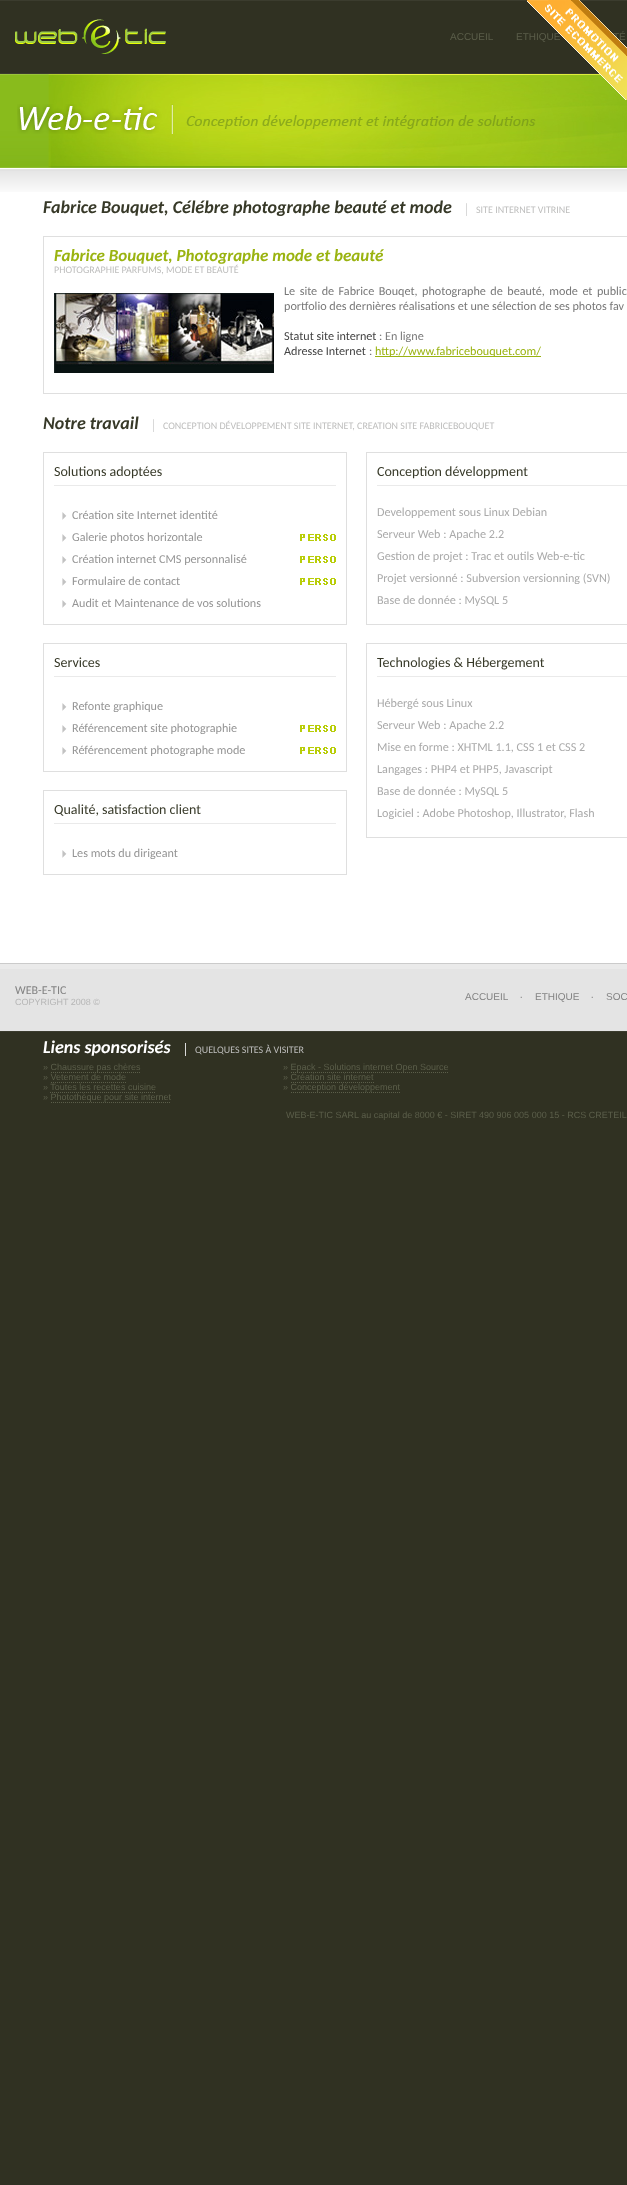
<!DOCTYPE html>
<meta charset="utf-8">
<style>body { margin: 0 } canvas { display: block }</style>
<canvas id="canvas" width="627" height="2185"></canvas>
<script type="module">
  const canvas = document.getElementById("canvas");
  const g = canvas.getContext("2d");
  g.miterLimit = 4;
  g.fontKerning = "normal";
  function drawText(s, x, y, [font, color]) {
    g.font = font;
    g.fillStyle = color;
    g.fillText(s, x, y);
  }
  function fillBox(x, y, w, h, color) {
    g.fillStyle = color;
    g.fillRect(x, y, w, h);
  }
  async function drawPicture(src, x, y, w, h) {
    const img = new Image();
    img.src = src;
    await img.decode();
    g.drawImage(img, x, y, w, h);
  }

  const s1 = ["10px Liberation Sans", "#5B5E4A"];
  const s2 = ["italic bold 18px Carlito", "#373928"];
  const s3 = ["10px Carlito", "#BEBEBD"];
  const s4 = ["italic bold 17px Carlito", "#9AB310"];
  const s5 = ["12.15px Carlito", "#797979"];
  const s6 = ["12.15px Carlito", "#444444"];
  const s7 = ["12.15px Carlito", "#9AB310"];
  const s8 = ["14px Carlito", "#373928"];
  const s9 = ["12.15px Carlito", "#959595"];
  const s10 = ["12.15px Carlito", "#AAAAAA"];
  const s11 = ["12px Carlito", "#838383"];
  const s12 = ["9px Liberation Sans", "#B6B6B6"];
  const s13 = ["10px Liberation Sans", "#838383"];
  const s14 = ["italic bold 18px Carlito", "#FFFFFF"];
  const s15 = ["9px Liberation Sans", "#5B5E4A"];

  fillBox(0, 0, 627, 2185, "#303122");
  fillBox(0, 0, 627, 1, "#3B3C2E");
  fillBox(0, 73, 599, 1, "#3B3C2E");
  drawText("ETHIQUE", 516, 40, s1);
  drawText("TÉ", 613, 40, s1);
  await drawPicture("pic3.png", 0, 74, 627, 94);
  await drawPicture("pic1.png", 527, 0, 100, 100);
  await drawPicture("pic2.png", 15, 19, 151, 35);
  drawText("ACCUEIL", 450, 40, s1);
  await drawPicture("pic4.png", 17, 104, 519, 30);
  fillBox(0, 168, 627, 795, "#FFFFFF");
  await drawPicture("pic5.png", 0, 169, 627, 23);
  drawText("Fabrice Bouquet, Célébre photographe beauté et mode", 43, 213, s2);
  await drawPicture("pic6.png", 466, 203, 1, 13);
  drawText("SITE INTERNET VITRINE", 476, 213, s3);
  g.strokeStyle = "#DFDFDF";
  g.strokeRect(43.5, 236.5, 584, 157);
  drawText("Fabrice Bouquet, Photographe mode et beauté", 54, 261, s4);
  drawText("PHOTOGRAPHIE PARFUMS, MODE ET BEAUTÉ", 54, 273, s3);
  await drawPicture("pic7.png", 54, 293, 220, 80);
  g.wordSpacing = "1.75px";
  drawText("Le site de Fabrice Bouqet, photographe de beauté, mode et public", 284, 295, s5);
  g.wordSpacing = "0px";
  drawText("portfolio des dernières réalisations et une sélection de ses photos fav", 284, 310, s5);
  drawText("Statut site internet", 284, 340, s6);
  drawText(": En ligne", 379, 340, s5);
  drawText("Adresse Internet", 284, 355, s6);
  drawText(":", 369, 355, s5);
  fillBox(375, 356, 166, 1, "#9AB310");
  drawText("http://www.fabricebouquet.com/", 375, 355, s7);
  drawText("Notre travail", 43, 429, s2);
  await drawPicture("pic6.png", 153, 419, 1, 13);
  drawText("CONCEPTION DÉVELOPPEMENT SITE INTERNET, CREATION SITE FABRICEBOUQUET", 163, 429, s3);
  g.strokeRect(43.5, 452.5, 303, 172);
  fillBox(54, 485, 282, 1, "#EAEAEA");
  drawText("Solutions adoptées", 54, 476, s8);
  await drawPicture("pic8.png", 62, 512, 5, 8);
  drawText("Création site Internet identité", 72, 519, s9);
  await drawPicture("pic9.png", 300, 534, 36, 7);
  await drawPicture("pic8.png", 62, 534, 5, 8);
  drawText("Galerie photos horizontale", 72, 541, s9);
  await drawPicture("pic9.png", 300, 556, 36, 7);
  await drawPicture("pic8.png", 62, 556, 5, 8);
  drawText("Création internet CMS personnalisé", 72, 563, s9);
  await drawPicture("pic9.png", 300, 578, 36, 7);
  await drawPicture("pic8.png", 62, 578, 5, 8);
  drawText("Formulaire de contact", 72, 585, s9);
  await drawPicture("pic8.png", 62, 600, 5, 8);
  drawText("Audit et Maintenance de vos solutions", 72, 607, s9);
  g.strokeRect(366.5, 452.5, 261, 172);
  fillBox(377, 485, 250, 1, "#EAEAEA");
  drawText("Conception développment", 377, 476, s8);
  drawText("Developpement sous Linux Debian", 377, 516, s10);
  drawText("Serveur Web : Apache 2.2", 377, 538, s10);
  drawText("Gestion de projet : Trac et outils Web-e-tic", 377, 560, s10);
  drawText("Projet versionné : Subversion versionning (SVN)", 377, 582, s10);
  drawText("Base de donnée : MySQL 5", 377, 604, s10);
  g.strokeRect(43.5, 643.5, 303, 128);
  fillBox(54, 676, 282, 1, "#EAEAEA");
  drawText("Services", 54, 667, s8);
  await drawPicture("pic8.png", 62, 703, 5, 8);
  drawText("Refonte graphique", 72, 710, s9);
  await drawPicture("pic9.png", 300, 725, 36, 7);
  await drawPicture("pic8.png", 62, 725, 5, 8);
  drawText("Référencement site photographie", 72, 732, s9);
  await drawPicture("pic9.png", 300, 747, 36, 7);
  await drawPicture("pic8.png", 62, 747, 5, 8);
  drawText("Référencement photographe mode", 72, 754, s9);
  g.strokeRect(366.5, 643.5, 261, 194);
  fillBox(377, 676, 250, 1, "#EAEAEA");
  drawText("Technologies & Hébergement", 377, 667, s8);
  drawText("Hébergé sous Linux", 377, 707, s10);
  drawText("Serveur Web : Apache 2.2", 377, 729, s10);
  drawText("Mise en forme : XHTML 1.1, CSS 1 et CSS 2", 377, 751, s10);
  drawText("Langages : PHP4 et PHP5, Javascript", 377, 773, s10);
  drawText("Base de donnée : MySQL 5", 377, 795, s10);
  drawText("Logiciel : Adobe Photoshop, Illustrator, Flash", 377, 817, s10);
  g.strokeRect(43.5, 790.5, 303, 84);
  fillBox(54, 823, 282, 1, "#EAEAEA");
  drawText("Qualité, satisfaction client", 54, 814, s8);
  await drawPicture("pic8.png", 62, 850, 5, 8);
  drawText("Les mots du dirigeant", 72, 857, s9);
  await drawPicture("pic10.png", 0, 963, 627, 68);
  drawText("WEB-E-TIC", 15, 994, s11);
  drawText("COPYRIGHT 2008 ©", 15, 1005, s12);
  drawText("ACCUEIL", 465, 1000, s13);
  await drawPicture("pic11.png", 520, 996, 2, 2);
  drawText("ETHIQUE", 535, 1000, s13);
  await drawPicture("pic11.png", 591, 996, 2, 2);
  drawText("SOC", 606, 1000, s13);
  fillBox(0, 1031, 627, 1, "#3B3C2E");
  drawText("Liens sponsorisés", 43, 1053, s14);
  await drawPicture("pic6.png", 185, 1043, 1, 13);
  drawText("QUELQUES SITES À VISITER", 195, 1053, s3);
  drawText("» Chaussure pas chères", 43, 1070, s15);
  g.beginPath();
  g.moveTo(51, 1072.5);
  g.lineTo(141, 1072.5);
  g.strokeStyle = "#5B5E4A";
  g.setLineDash([1, 1]);
  g.stroke();
  drawText("» Epack - Solutions internet Open Source", 283, 1070, s15);
  g.beginPath();
  g.moveTo(291, 1072.5);
  g.lineTo(449, 1072.5);
  g.stroke();
  drawText("» Vetement de mode", 43, 1080, s15);
  g.beginPath();
  g.moveTo(51, 1082.5);
  g.lineTo(126, 1082.5);
  g.stroke();
  drawText("» Création site internet", 283, 1080, s15);
  g.beginPath();
  g.moveTo(291, 1082.5);
  g.lineTo(374, 1082.5);
  g.stroke();
  drawText("» Toutes les recettes cuisine", 43, 1090, s15);
  g.beginPath();
  g.moveTo(50, 1092.5);
  g.lineTo(156, 1092.5);
  g.stroke();
  drawText("» Conception développement", 283, 1090, s15);
  g.beginPath();
  g.moveTo(291, 1092.5);
  g.lineTo(400, 1092.5);
  g.stroke();
  drawText("» Photothèque pour site internet", 43, 1100, s15);
  g.beginPath();
  g.moveTo(51, 1102.5);
  g.lineTo(171, 1102.5);
  g.stroke();
  drawText("WEB-E-TIC SARL au capital de 8000 € - SIRET 490 906 005 000 15 - RCS CRETEIL", 286, 1118, s15);
</script>
